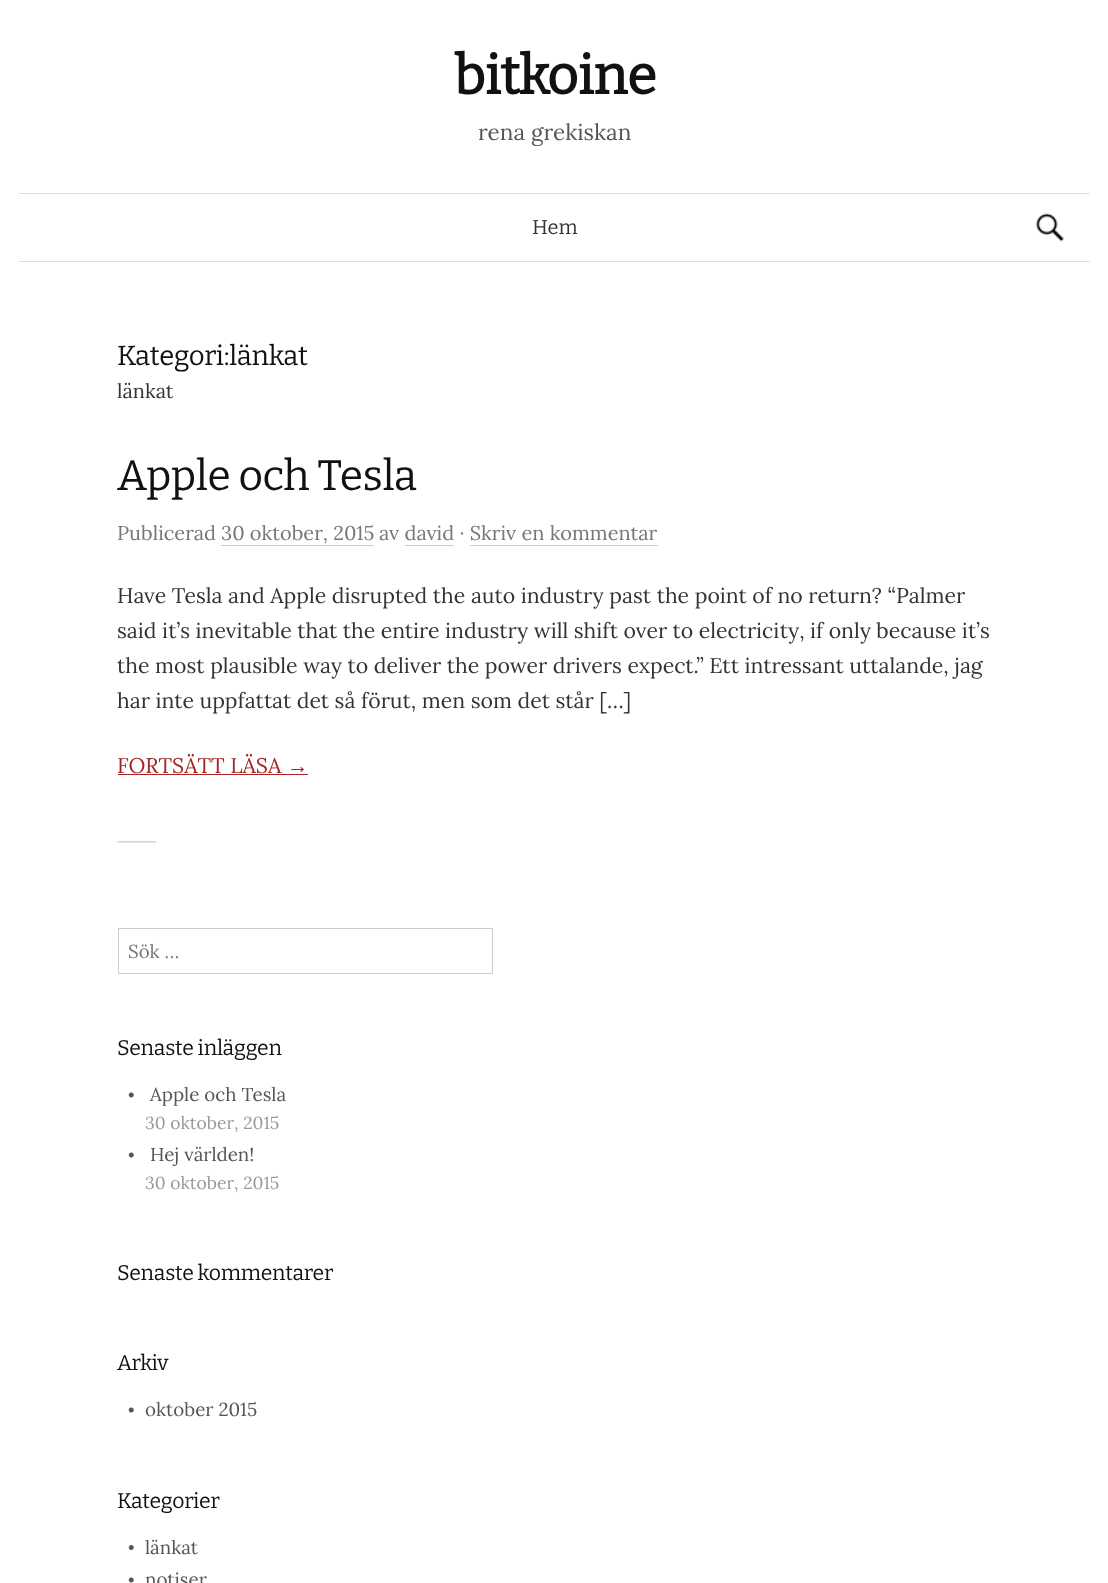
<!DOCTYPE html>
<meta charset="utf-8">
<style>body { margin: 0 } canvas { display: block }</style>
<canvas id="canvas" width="1108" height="1583"></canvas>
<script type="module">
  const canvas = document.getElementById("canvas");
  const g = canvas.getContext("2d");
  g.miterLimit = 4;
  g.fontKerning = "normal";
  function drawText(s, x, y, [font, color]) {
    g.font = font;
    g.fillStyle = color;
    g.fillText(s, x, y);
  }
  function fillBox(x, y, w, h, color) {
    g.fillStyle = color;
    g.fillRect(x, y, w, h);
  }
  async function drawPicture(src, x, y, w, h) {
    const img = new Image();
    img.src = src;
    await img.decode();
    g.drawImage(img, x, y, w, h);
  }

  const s1 = ["bold 54px Bitter", "#111111"];
  const s2 = ["22.5px Lora", "#555555"];
  const s3 = ["100 20px Bitter", "#333333"];
  const s4 = ["100 27.5px Bitter", "#111111"];
  const s5 = ["20px Lora", "#333333"];
  const s6 = ["100 42.5px Bitter", "#111111"];
  const s7 = ["20px Lora", "#777777"];
  const s8 = ["21.25px Lora", "#333333"];
  const s9 = ["21.25px Lora", "#A62425"];
  const s10 = ["21.25px Liberation Serif", "#A62425"];
  const s11 = ["18.75px Lora", "#777777"];
  const s12 = ["100 21.25px Bitter", "#111111"];
  const s13 = ["18.75px Lora", "#555555"];
  const s14 = ["17.5px Lora", "#999999"];

  fillBox(0, 0, 1108, 1583, "#FFFFFF");
  g.letterSpacing = "-0.5px";
  drawText("bitkoine", 454, 94, s1);
  g.letterSpacing = "0px";
  drawText("rena grekiskan", 478, 140, s2);
  fillBox(19, 261, 1071, 1, "#DDDDDD");
  fillBox(19, 193, 1071, 1, "#DDDDDD");
  drawText("Hem", 532, 234, s3);
  await drawPicture("pic1.png", 1036, 213, 28, 29);
  g.letterSpacing = "-0.25px";
  drawText("Kategori:länkat", 117, 365, s4);
  g.letterSpacing = "0px";
  drawText("länkat", 117, 398, s5);
  await drawPicture("pic2.png", 117, 841, 40, 2);
  g.letterSpacing = "-0.4px";
  drawText("Apple och Tesla", 117, 490, s6);
  g.letterSpacing = "0px";
  drawText("Publicerad", 117, 540, s7);
  drawText("30 oktober, 2015", 221, 540, s7);
  fillBox(221, 545, 153, 1, "#CCCCCC");
  drawText("av david · Skriv en kommentar", 379, 540, s7);
  fillBox(405, 545, 49, 1, "#CCCCCC");
  fillBox(470, 545, 188, 1, "#CCCCCC");
  drawText("Have Tesla and Apple disrupted the auto industry past the point of no return? “Palmer", 117, 603, s8);
  g.wordSpacing = "-0.1px";
  drawText("said it’s inevitable that the entire industry will shift over to electricity, if only because it’s", 117, 638, s8);
  g.wordSpacing = "0px";
  drawText("the most plausible way to deliver the power drivers expect.” Ett intressant uttalande, jag", 117, 673, s8);
  drawText("har inte uppfattat det så förut, men som det står […]", 117, 708, s8);
  drawText("FORTSÄTT LÄSA", 117, 773, s9);
  drawText("→", 287, 773, s10);
  fillBox(118, 774, 190, 1, "#A62425");
  g.strokeStyle = "#CCCCCC";
  g.strokeRect(118.5, 928.5, 374, 45);
  drawText("Sök …", 128, 958, s11);
  g.letterSpacing = "-0.25px";
  drawText("Senaste inläggen", 117, 1055, s12);
  await drawPicture("pic3.png", 128, 1092, 6, 6);
  g.letterSpacing = "0px";
  drawText("Apple och Tesla", 150, 1101, s13);
  drawText("30 oktober, 2015", 145, 1129, s14);
  await drawPicture("pic3.png", 128, 1152, 6, 6);
  drawText("Hej världen!", 150, 1161, s13);
  drawText("30 oktober, 2015", 145, 1189, s14);
  g.letterSpacing = "-0.25px";
  drawText("Senaste kommentarer", 117, 1280, s12);
  drawText("Arkiv", 117, 1370, s12);
  await drawPicture("pic3.png", 128, 1407, 6, 6);
  g.letterSpacing = "0px";
  drawText("oktober 2015", 145, 1416, s13);
  g.letterSpacing = "-0.25px";
  drawText("Kategorier", 117, 1508, s12);
  await drawPicture("pic4.png", 128, 1545, 6, 5);
  g.letterSpacing = "0px";
  drawText("länkat", 145, 1554, s13);
  await drawPicture("pic3.png", 128, 1577, 6, 6);
  drawText("notiser", 145, 1586, s13);
</script>
